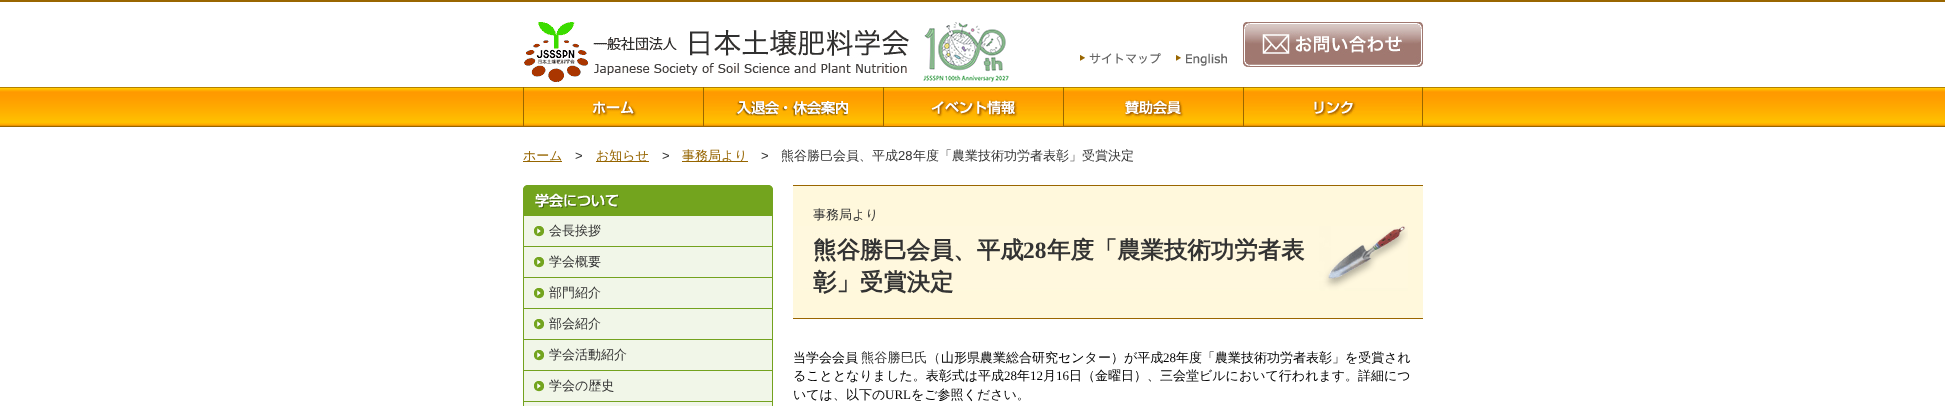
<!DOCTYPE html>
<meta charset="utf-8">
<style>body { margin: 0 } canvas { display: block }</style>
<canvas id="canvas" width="1945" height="406"></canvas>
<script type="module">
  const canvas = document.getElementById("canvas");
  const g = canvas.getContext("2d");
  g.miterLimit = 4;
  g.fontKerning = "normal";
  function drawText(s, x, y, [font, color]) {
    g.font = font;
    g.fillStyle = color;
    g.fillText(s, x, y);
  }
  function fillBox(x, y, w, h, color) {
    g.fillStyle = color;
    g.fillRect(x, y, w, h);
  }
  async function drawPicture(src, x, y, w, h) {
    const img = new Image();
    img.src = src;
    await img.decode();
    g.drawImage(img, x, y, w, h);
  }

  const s1 = ["500 13px WenQuanYi Zen Hei", "#966500"];
  const s2 = ["13px Liberation Sans", "#333333"];
  const s3 = ["500 13px WenQuanYi Zen Hei", "#333333"];
  const s4 = ["bold 23.4px WenQuanYi Zen Hei", "#333333"];
  const s5 = ["bold 23.4px Liberation Serif", "#333333"];
  const s6 = ["500 13px WenQuanYi Zen Hei", "#000000"];
  const s7 = ["500 13.25px WenQuanYi Zen Hei", "#333333"];
  const s8 = ["13px Liberation Serif", "#000000"];

  fillBox(0, 0, 1945, 406, "#FFFFFF");
  fillBox(0, 0, 1945, 2, "#996600");
  await drawPicture("pic1.png", 524, 22, 385, 60);
  await drawPicture("pic2.png", 923, 22, 86, 60);
  await drawPicture("pic3.png", 1080, 53, 81, 11);
  await drawPicture("pic4.png", 1176, 53, 51, 13);
  await drawPicture("pic5.png", 1243, 22, 180, 45);
  await drawPicture("pic6.png", 0, 87, 1945, 40);
  await drawPicture("pic7.png", 523, 87, 114, 39);
  await drawPicture("pic8.png", 703, 87, 145, 39);
  await drawPicture("pic9.png", 883, 87, 180, 39);
  await drawPicture("pic10.png", 1063, 87, 121, 39);
  await drawPicture("pic11.png", 1243, 87, 180, 39);
  fillBox(523, 161, 39, 1, "#966500");
  drawText("ホーム", 523, 160, s1);
  drawText(">", 575, 160, s2);
  fillBox(596, 161, 53, 1, "#966500");
  drawText("お知らせ", 596, 160, s1);
  drawText(">", 662, 160, s2);
  fillBox(682, 161, 66, 1, "#966500");
  drawText("事務局より", 682, 160, s1);
  drawText(">", 761, 160, s2);
  drawText("熊谷勝巳会員、平成", 781, 160, s3);
  drawText("28", 898, 160, s2);
  drawText("年度「農業技術功労者表彰」受賞決定", 913, 160, s3);
  await drawPicture("pic12.png", 523, 185, 250, 31);
  fillBox(524, 216, 248, 30, "#F1F6E8");
  await drawPicture("pic13.png", 534, 226, 10, 11);
  fillBox(772, 216, 1, 186, "#73A21E");
  fillBox(523, 246, 250, 1, "#73A21E");
  fillBox(523, 216, 1, 31, "#73A21E");
  drawText("会長挨拶", 549, 235, s3);
  fillBox(524, 247, 248, 30, "#F1F6E8");
  await drawPicture("pic13.png", 534, 257, 10, 11);
  fillBox(523, 277, 250, 1, "#73A21E");
  fillBox(523, 247, 1, 31, "#73A21E");
  drawText("学会概要", 549, 266, s3);
  fillBox(524, 278, 248, 30, "#F1F6E8");
  await drawPicture("pic13.png", 534, 288, 10, 11);
  fillBox(523, 308, 250, 1, "#73A21E");
  fillBox(523, 278, 1, 31, "#73A21E");
  drawText("部門紹介", 549, 297, s3);
  fillBox(524, 309, 248, 30, "#F1F6E8");
  await drawPicture("pic13.png", 534, 319, 10, 11);
  fillBox(523, 339, 250, 1, "#73A21E");
  fillBox(523, 309, 1, 31, "#73A21E");
  drawText("部会紹介", 549, 328, s3);
  fillBox(524, 340, 248, 30, "#F1F6E8");
  await drawPicture("pic13.png", 534, 350, 10, 11);
  fillBox(523, 370, 250, 1, "#73A21E");
  fillBox(523, 340, 1, 31, "#73A21E");
  drawText("学会活動紹介", 549, 359, s3);
  fillBox(524, 371, 248, 30, "#F1F6E8");
  await drawPicture("pic13.png", 534, 381, 10, 11);
  fillBox(523, 401, 250, 1, "#73A21E");
  fillBox(523, 371, 1, 31, "#73A21E");
  drawText("学会の歴史", 549, 390, s3);
  fillBox(523, 402, 250, 4, "#F1F6E8");
  fillBox(772, 402, 1, 4, "#73A21E");
  fillBox(523, 402, 1, 4, "#73A21E");
  fillBox(793, 186, 630, 132, "#FFF8DC");
  await drawPicture("pic14.png", 794, 226, 614, 65);
  fillBox(793, 185, 630, 1, "#9A6600");
  fillBox(793, 318, 630, 1, "#9A6600");
  drawText("事務局より", 813, 219, s3);
  drawText("熊谷勝巳会員、平成", 813, 258, s4);
  drawText("28", 1023, 258, s5);
  drawText("年度「農業技術功労者表", 1047, 258, s4);
  drawText("彰」受賞決定", 813, 290, s4);
  drawText("当学会会員", 793, 362, s6);
  drawText("熊谷勝巳氏（", 861, 362, s7);
  drawText("山形県農業総合研究センター）が平成", 941, 362, s6);
  drawText("28", 1163, 362, s8);
  drawText("年度「農業技術功労者表彰」を受賞され", 1176, 362, s6);
  drawText("ることとなりました。表彰式は平成", 793, 380, s6);
  drawText("28", 1004, 380, s8);
  drawText("年", 1017, 380, s6);
  drawText("12", 1030, 380, s8);
  drawText("月", 1043, 380, s6);
  drawText("16", 1056, 380, s8);
  drawText("日（金曜日）、三会堂ビルにおいて行われます。詳細につ", 1069, 380, s6);
  drawText("いては、以下の", 793, 399, s6);
  drawText("URL", 885, 399, s8);
  drawText("をご参照ください。", 911, 399, s6);
</script>
